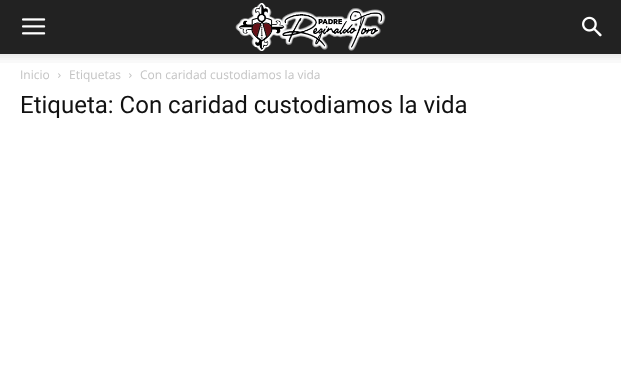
<!DOCTYPE html>
<meta charset="utf-8">
<style>body { margin: 0 } canvas { display: block }</style>
<canvas id="canvas" width="621" height="373"></canvas>
<script type="module">
  const canvas = document.getElementById("canvas");
  const g = canvas.getContext("2d");
  g.miterLimit = 4;
  g.fontKerning = "normal";
  function drawText(s, x, y, [font, color]) {
    g.font = font;
    g.fillStyle = color;
    g.fillText(s, x, y);
  }
  function fillBox(x, y, w, h, color) {
    g.fillStyle = color;
    g.fillRect(x, y, w, h);
  }
  async function drawPicture(src, x, y, w, h) {
    const img = new Image();
    img.src = src;
    await img.decode();
    g.drawImage(img, x, y, w, h);
  }

  const s1 = ["12px Open Sans", "#C3C3C3"];
  const s2 = ["24px Roboto", "#111111"];

  fillBox(0, 0, 621, 373, "#FFFFFF");
  fillBox(0, 0, 621, 54, "#222222");
  await drawPicture("pic1.png", 22, 18, 24, 17);
  await drawPicture("pic2.png", 235, 3, 151, 48);
  await drawPicture("pic3.png", 582, 16, 20, 21);
  await drawPicture("pic4.png", 0, 54, 621, 9);
  drawText("Inicio", 20, 79, s1);
  await drawPicture("pic5.png", 58, 73, 3, 5);
  drawText("Etiquetas", 69, 79, s1);
  await drawPicture("pic5.png", 129, 73, 3, 5);
  drawText("Con caridad custodiamos la vida", 140, 79, s1);
  drawText("Etiqueta: Con caridad custodiamos la vida", 20, 113, s2);
</script>
